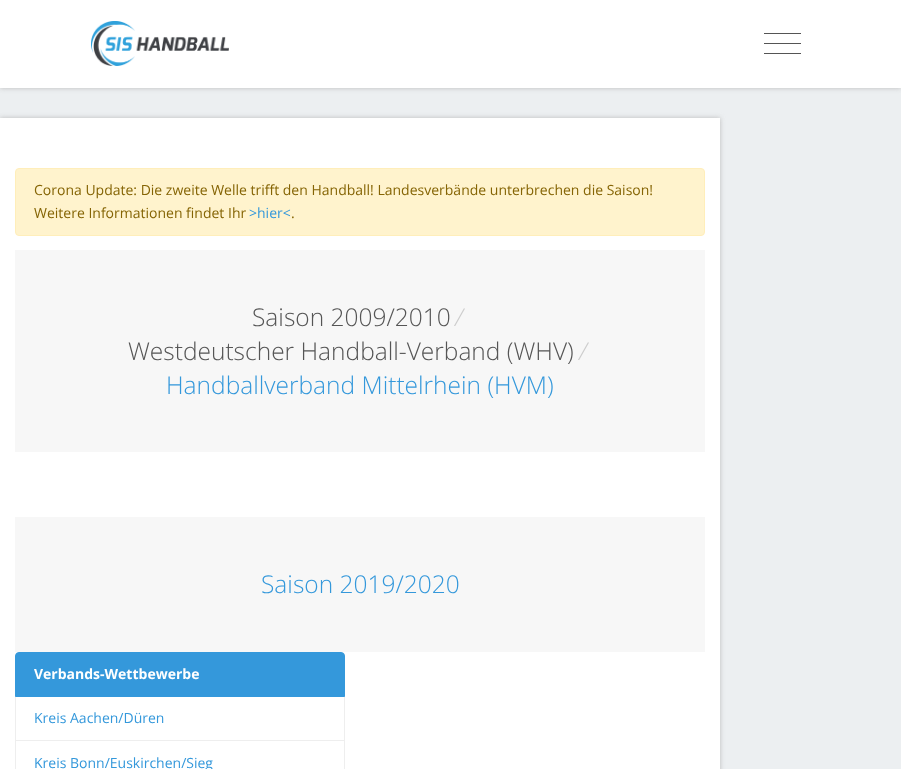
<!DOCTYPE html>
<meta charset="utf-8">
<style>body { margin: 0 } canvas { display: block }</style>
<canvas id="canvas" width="901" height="769"></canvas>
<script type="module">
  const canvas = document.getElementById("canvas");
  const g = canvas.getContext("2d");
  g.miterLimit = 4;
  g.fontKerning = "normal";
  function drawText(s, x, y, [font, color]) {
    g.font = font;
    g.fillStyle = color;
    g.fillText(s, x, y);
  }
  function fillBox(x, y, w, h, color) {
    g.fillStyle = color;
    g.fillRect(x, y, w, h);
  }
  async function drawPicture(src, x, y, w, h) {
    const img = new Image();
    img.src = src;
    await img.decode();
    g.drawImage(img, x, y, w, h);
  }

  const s1 = ["14px Open Sans", "#856404"];
  const s2 = ["14px Open Sans", "#3498DB"];
  const s3 = ["300 24.5px Open Sans", "#555555"];
  const s4 = ["italic 300 24.5px Open Sans", "#CCCCCC"];
  const s5 = ["300 24.5px Open Sans", "#3498DB"];
  const s6 = ["bold 14px Open Sans", "#FFFFFF"];

  fillBox(0, 0, 901, 769, "#ECEFF1");
  g.fillStyle = "#BBBBBB";
  g.filter = "blur(2.5px)";
  g.beginPath();
  g.rect(0, 0, 901, 88);
  g.fill();
  g.filter = "none";
  fillBox(0, 0, 901, 88, "#FFFFFF");
  await drawPicture("pic1.png", 91, 21, 138, 45);
  fillBox(764, 33, 37, 1, "#555555");
  fillBox(764, 43, 37, 1, "#555555");
  fillBox(764, 53, 37, 1, "#555555");
  g.fillStyle = "#BBBBBB";
  g.filter = "blur(2.5px)";
  g.beginPath();
  g.rect(0, 118, 720, 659);
  g.fill();
  g.filter = "none";
  fillBox(0, 118, 720, 651, "#FFFFFF");
  g.fillStyle = "#FFF3CD";
  g.beginPath();
  g.roundRect(15.5, 168.5, 689, 67, 3.5);
  g.fill();
  g.strokeStyle = "#FFEEBA";
  g.stroke();
  drawText("Corona Update: Die zweite Welle trifft den Handball! Landesverbände unterbrechen die Saison!", 34, 195, s1);
  drawText("Weitere Informationen findet Ihr", 34, 218, s1);
  drawText(">hier<", 249, 218, s2);
  drawText(".", 291, 218, s1);
  fillBox(15, 250, 690, 202, "#F7F7F7");
  drawText("Saison 2009/2010", 252, 326, s3);
  drawText("/", 455, 326, s4);
  drawText("Westdeutscher Handball-Verband (WHV)", 128, 360, s3);
  drawText("/", 579, 360, s4);
  drawText("Handballverband Mittelrhein (HVM)", 166, 394, s5);
  fillBox(15, 517, 690, 135, "#F7F7F7");
  drawText("Saison 2019/2020", 261, 593, s5);
  g.strokeStyle = "#EEEEEE";
  g.strokeRect(15.5, 696.5, 329, 44);
  g.beginPath();
  g.roundRect(15.5, 652.5, 329, 44, [3.5, 3.5, 0, 0]);
  g.fill();
  g.strokeStyle = "#3498DB";
  g.stroke();
  drawText("Verbands-Wettbewerbe", 34, 679, s6);
  drawText("Kreis Aachen/Düren", 34, 723, s2);
  g.strokeStyle = "#EEEEEE";
  g.strokeRect(15.5, 740.5, 329, 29);
  drawText("Kreis Bonn/Euskirchen/Sieg", 34, 768, s2);
</script>
